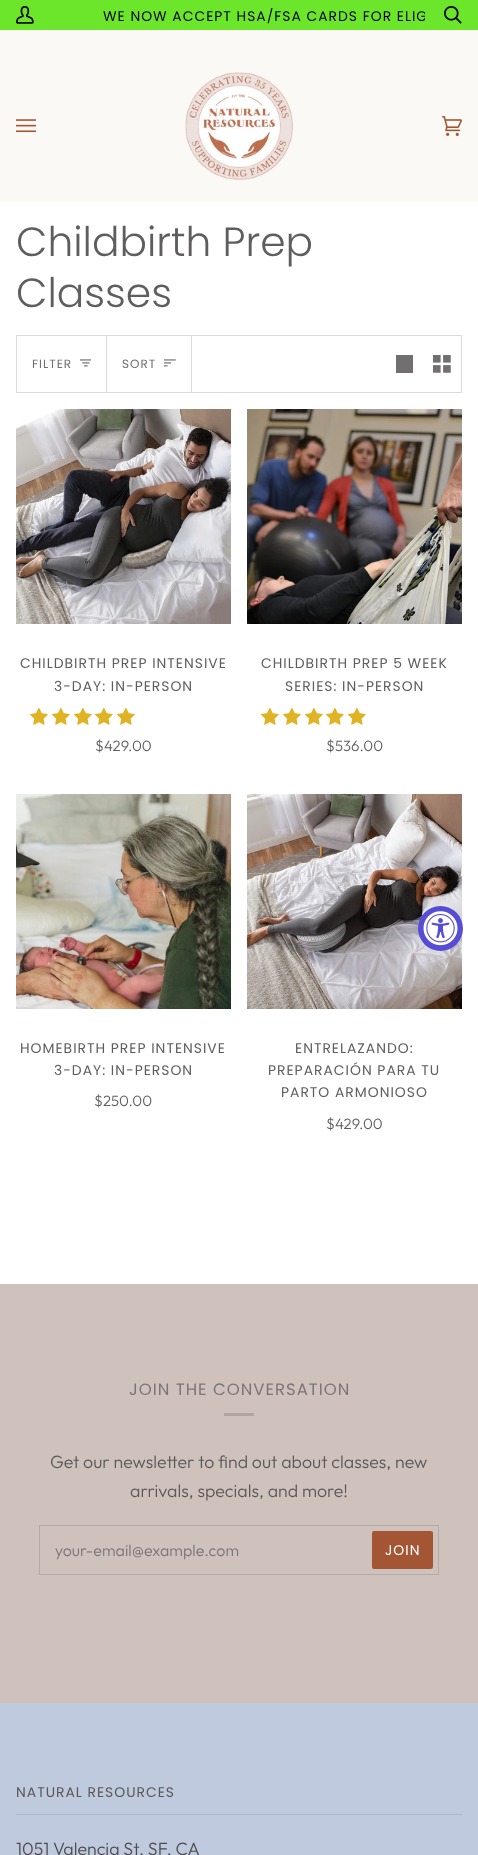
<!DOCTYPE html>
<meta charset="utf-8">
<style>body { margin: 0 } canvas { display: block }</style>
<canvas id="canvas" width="478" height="1855"></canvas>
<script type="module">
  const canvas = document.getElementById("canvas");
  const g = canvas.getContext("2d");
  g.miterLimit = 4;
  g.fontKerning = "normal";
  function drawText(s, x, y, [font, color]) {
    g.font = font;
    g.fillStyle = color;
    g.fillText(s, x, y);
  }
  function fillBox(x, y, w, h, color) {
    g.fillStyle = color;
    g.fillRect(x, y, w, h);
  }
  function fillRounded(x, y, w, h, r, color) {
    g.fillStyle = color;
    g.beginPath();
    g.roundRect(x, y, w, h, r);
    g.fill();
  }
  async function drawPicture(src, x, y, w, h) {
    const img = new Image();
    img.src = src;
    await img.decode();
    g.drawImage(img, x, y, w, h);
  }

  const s1 = ["13.9px Poppins", "#000000"];
  const s2 = ["300 40.75px Poppins", "#5F5D5D"];
  const s3 = ["12px Poppins", "#716F6F"];
  const s4 = ["13.9px Poppins", "#5F5D5D"];
  const s5 = ["300 15px Outfit", "#5F5D5D"];
  const s6 = ["16.5px Poppins", "#7B7675"];
  const s7 = ["300 17.75px Outfit", "#5A5756"];
  const s8 = ["300 16px Outfit", "#757575"];
  const s9 = ["13.9px Poppins", "#FFFFFF"];
  const s10 = ["13.9px Poppins", "#5A5756"];
  const s11 = ["300 17.75px Outfit", "#4D4B4B"];

  fillBox(0, 0, 478, 1855, "#FFFFFF");
  fillBox(0, 0, 478, 30, "#6CE62B");
  await drawPicture("pic1.png", 16, 6, 18, 18);
  g.save();
  g.beginPath();
  g.rect(53, 1, 372, 28);
  g.clip();
  g.letterSpacing = "1px";
  drawText("WE NOW ACCEPT HSA/FSA CARDS FOR ELIG", 103, 21, s1);
  g.restore();
  await drawPicture("pic2.png", 444, 6, 18, 18);
  fillBox(0, 30, 478, 172, "#FAF9F6");
  await drawPicture("pic3.png", 16, 119, 20, 14);
  await drawPicture("pic4.png", 185, 72, 108, 108);
  await drawPicture("pic5.png", 442, 116, 20, 20);
  drawText("Childbirth Prep", 16, 256, s2);
  drawText("Classes", 16, 307, s2);
  g.strokeStyle = "#DBDBDB";
  g.strokeRect(16.5, 335.5, 445, 57);
  fillBox(106, 336, 1, 56, "#DBDBDB");
  g.letterSpacing = "1px";
  drawText("FILTER", 32, 368, s3);
  await drawPicture("pic6.png", 80, 359, 11, 8);
  fillBox(191, 336, 1, 56, "#DBDBDB");
  drawText("SORT", 122, 368, s3);
  await drawPicture("pic7.png", 164, 359, 12, 8);
  fillBox(396, 355, 17, 18, "#716F6F");
  await drawPicture("pic8.png", 433, 355, 18, 18);
  await drawPicture("pic9.png", 16, 409, 215, 215);
  drawText("CHILDBIRTH PREP INTENSIVE", 20, 668, s4);
  drawText("3-DAY: IN-PERSON", 54, 691, s4);
  await drawPicture("pic10.png", 30, 707, 18, 18);
  await drawPicture("pic10.png", 52, 707, 18, 18);
  await drawPicture("pic10.png", 74, 707, 18, 18);
  await drawPicture("pic10.png", 95, 707, 18, 18);
  await drawPicture("pic10.png", 117, 707, 18, 18);
  g.letterSpacing = "0px";
  drawText("$429.00", 95, 751, s5);
  await drawPicture("pic11.png", 247, 409, 215, 215);
  g.letterSpacing = "1px";
  drawText("CHILDBIRTH PREP 5 WEEK", 261, 668, s4);
  drawText("SERIES: IN-PERSON", 285, 691, s4);
  await drawPicture("pic10.png", 261, 707, 18, 18);
  await drawPicture("pic10.png", 283, 707, 18, 18);
  await drawPicture("pic10.png", 305, 707, 18, 18);
  await drawPicture("pic10.png", 326, 707, 18, 18);
  await drawPicture("pic10.png", 348, 707, 18, 18);
  g.letterSpacing = "0px";
  drawText("$536.00", 326, 751, s5);
  await drawPicture("pic12.png", 16, 794, 215, 215);
  g.letterSpacing = "1px";
  drawText("HOMEBIRTH PREP INTENSIVE", 20, 1053, s4);
  drawText("3-DAY: IN-PERSON", 54, 1075, s4);
  g.letterSpacing = "0px";
  drawText("$250.00", 94, 1106, s5);
  await drawPicture("pic13.png", 247, 794, 215, 215);
  g.letterSpacing = "1px";
  drawText("ENTRELAZANDO:", 295, 1053, s4);
  drawText("PREPARACIÓN PARA TU", 268, 1075, s4);
  drawText("PARTO ARMONIOSO", 281, 1097, s4);
  g.letterSpacing = "0px";
  drawText("$429.00", 326, 1129, s5);
  g.fillStyle = "#574CD5";
  g.beginPath();
  g.arc(440.5, 928.5, 22.5, 0, Math.PI * 2);
  g.fill();
  await drawPicture("pic14.png", 423, 911, 35, 35);
  fillBox(0, 1284, 478, 419, "#CFC2BD");
  g.letterSpacing = "1px";
  drawText("JOIN THE CONVERSATION", 129, 1395, s6);
  fillBox(224, 1413, 30, 3, "#B0A5A1");
  g.letterSpacing = "0px";
  drawText("Get our newsletter to find out about classes, new", 50, 1468, s7);
  drawText("arrivals, specials, and more!", 130, 1497, s7);
  g.strokeStyle = "#B5AAA6";
  g.strokeRect(39.5, 1525.5, 399, 49);
  drawText("your-email@example.com", 55, 1556, s8);
  fillRounded(372, 1531, 61, 38, 2, "#A45634");
  g.letterSpacing = "1px";
  drawText("JOIN", 385, 1555, s9);
  fillBox(0, 1703, 478, 152, "#C0CADE");
  drawText("NATURAL RESOURCES", 16, 1797, s10);
  fillBox(16, 1814, 446, 1, "#AFB7C8");
  g.letterSpacing = "0px";
  drawText("1051 Valencia St. SF, CA", 16, 1855, s11);
</script>
